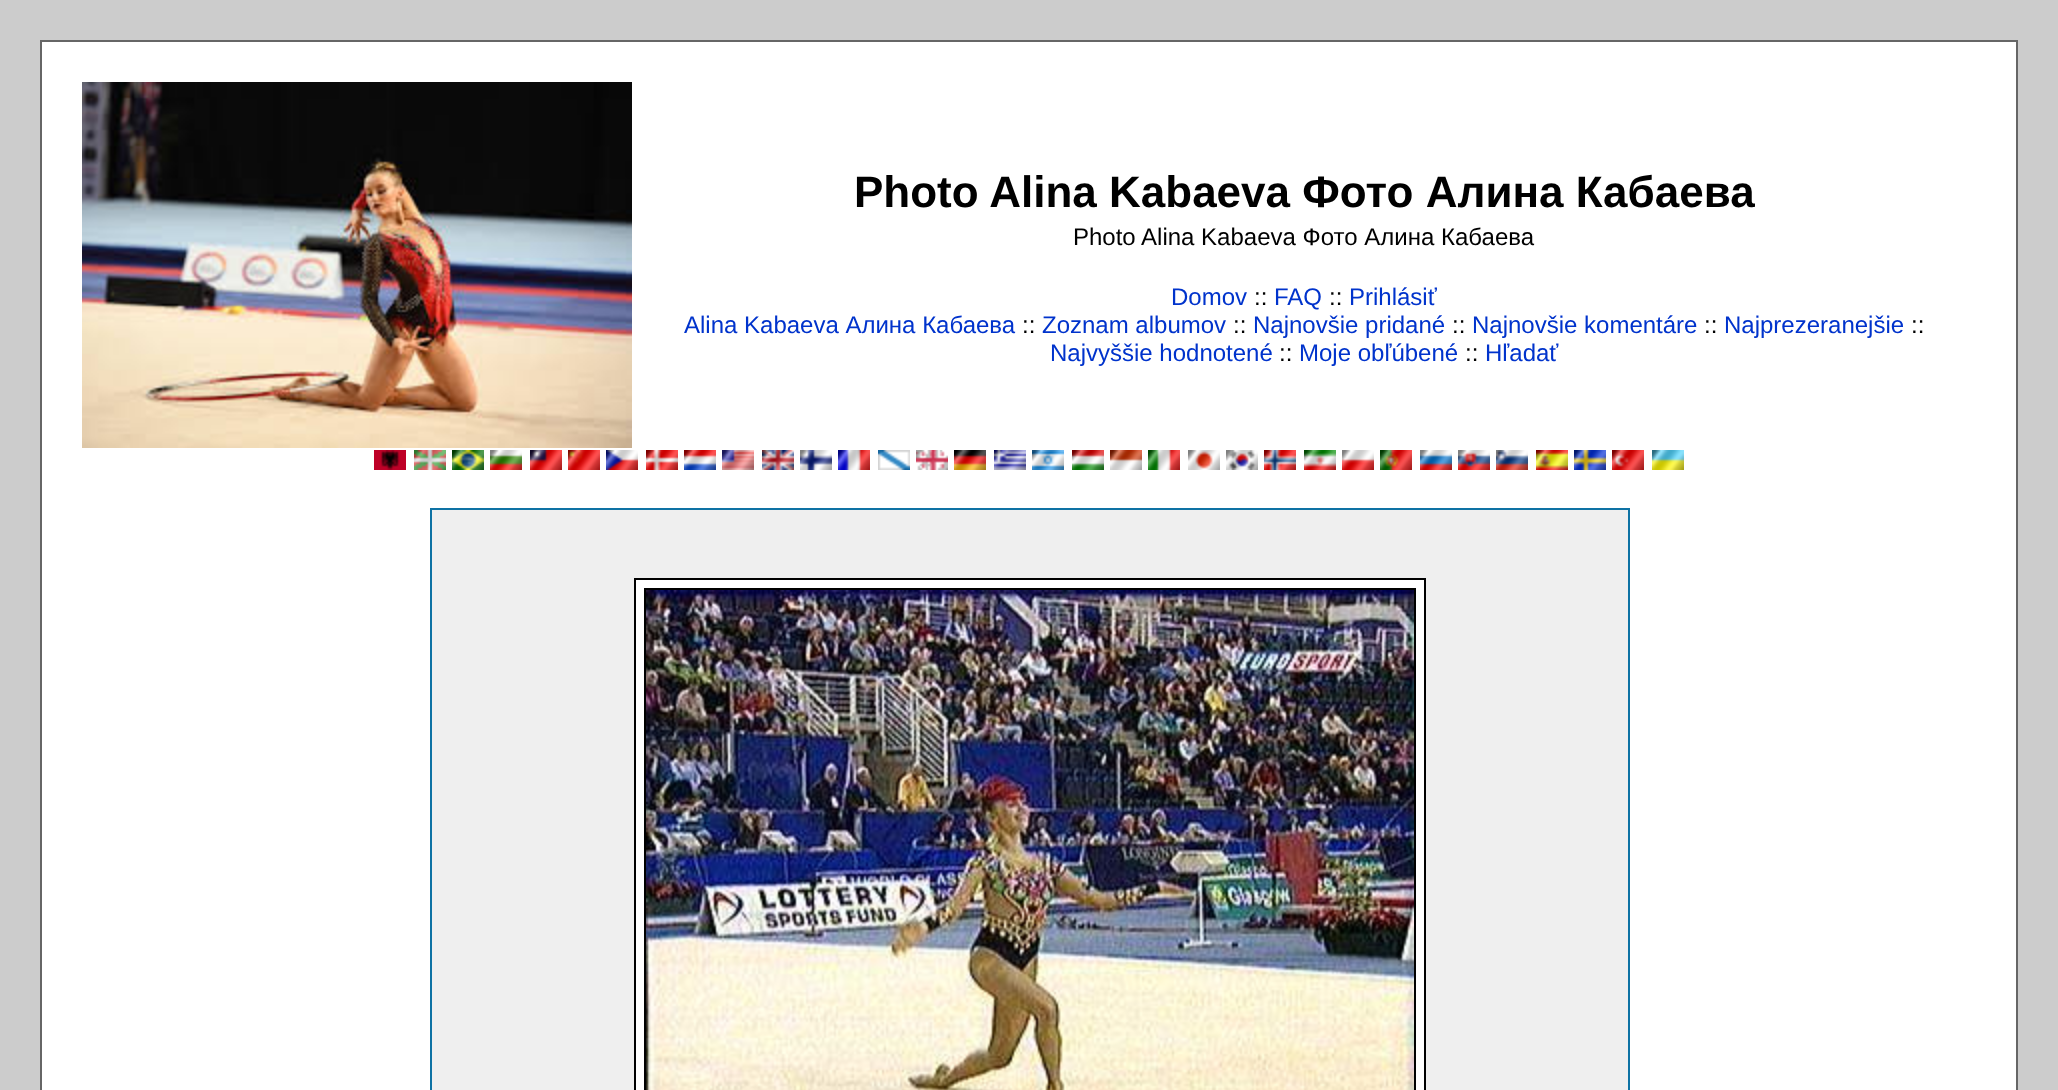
<!DOCTYPE html>
<meta charset="utf-8">
<style>body { margin: 0 } canvas { display: block }</style>
<canvas id="canvas" width="2058" height="1090"></canvas>
<script type="module">
  const canvas = document.getElementById("canvas");
  const g = canvas.getContext("2d");
  g.miterLimit = 4;
  g.fontKerning = "normal";
  function drawText(s, x, y, [font, color]) {
    g.font = font;
    g.fillStyle = color;
    g.fillText(s, x, y);
  }
  function fillBox(x, y, w, h, color) {
    g.fillStyle = color;
    g.fillRect(x, y, w, h);
  }
  async function drawPicture(src, x, y, w, h) {
    const img = new Image();
    img.src = src;
    await img.decode();
    g.drawImage(img, x, y, w, h);
  }

  const s1 = ["bold 44px Liberation Sans", "#000000"];
  const s2 = ["24px Liberation Sans", "#000000"];
  const s3 = ["24px Liberation Sans", "#0033CC"];

  fillBox(0, 0, 2058, 1090, "#CCCCCC");
  g.fillStyle = "#FFFFFF";
  g.beginPath();
  g.rect(41, 41, 1976, 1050);
  g.fill();
  g.strokeStyle = "#666666";
  g.lineWidth = 2;
  g.stroke();
  await drawPicture("pic1.png", 82, 82, 550, 366);
  drawText("Photo Alina Kabaeva Фото Алина Кабаева", 854, 207, s1);
  drawText("Photo Alina Kabaeva Фото Алина Кабаева", 1073, 245, s2);
  drawText("Domov", 1171, 305, s3);
  drawText("::", 1254, 305, s2);
  drawText("FAQ", 1274, 305, s3);
  drawText("::", 1329, 305, s2);
  drawText("Prihlásiť", 1349, 305, s3);
  drawText("Alina Kabaeva Алина Кабаева", 684, 333, s3);
  drawText("::", 1022, 333, s2);
  drawText("Zoznam albumov", 1042, 333, s3);
  drawText("::", 1233, 333, s2);
  drawText("Najnovšie pridané", 1253, 333, s3);
  drawText("::", 1452, 333, s2);
  drawText("Najnovšie komentáre", 1472, 333, s3);
  drawText("::", 1704, 333, s2);
  drawText("Najprezeranejšie", 1724, 333, s3);
  drawText("::", 1911, 333, s2);
  drawText("Najvyššie hodnotené", 1050, 361, s3);
  drawText("::", 1279, 361, s2);
  drawText("Moje obľúbené", 1299, 361, s3);
  drawText("::", 1465, 361, s2);
  drawText("Hľadať", 1485, 361, s3);
  await drawPicture("pic2.png", 374, 450, 32, 20);
  await drawPicture("pic3.png", 414, 450, 32, 20);
  await drawPicture("pic4.png", 452, 450, 32, 20);
  await drawPicture("pic5.png", 490, 450, 32, 20);
  await drawPicture("pic6.png", 530, 450, 32, 20);
  await drawPicture("pic7.png", 568, 450, 32, 20);
  await drawPicture("pic8.png", 606, 450, 32, 20);
  await drawPicture("pic9.png", 646, 450, 32, 20);
  await drawPicture("pic10.png", 684, 450, 32, 20);
  await drawPicture("pic11.png", 722, 450, 32, 20);
  await drawPicture("pic12.png", 762, 450, 32, 20);
  await drawPicture("pic13.png", 800, 450, 32, 20);
  await drawPicture("pic14.png", 838, 450, 32, 20);
  await drawPicture("pic15.png", 878, 450, 32, 20);
  await drawPicture("pic16.png", 916, 450, 32, 20);
  await drawPicture("pic17.png", 954, 450, 32, 20);
  await drawPicture("pic18.png", 994, 450, 32, 20);
  await drawPicture("pic19.png", 1032, 450, 32, 20);
  await drawPicture("pic20.png", 1072, 450, 32, 20);
  await drawPicture("pic21.png", 1110, 450, 32, 20);
  await drawPicture("pic22.png", 1148, 450, 32, 20);
  await drawPicture("pic23.png", 1188, 450, 32, 20);
  await drawPicture("pic24.png", 1226, 450, 32, 20);
  await drawPicture("pic25.png", 1264, 450, 32, 20);
  await drawPicture("pic26.png", 1304, 450, 32, 20);
  await drawPicture("pic27.png", 1342, 450, 32, 20);
  await drawPicture("pic28.png", 1380, 450, 32, 20);
  await drawPicture("pic29.png", 1420, 450, 32, 20);
  await drawPicture("pic30.png", 1458, 450, 32, 20);
  await drawPicture("pic31.png", 1496, 450, 32, 20);
  await drawPicture("pic32.png", 1536, 450, 32, 20);
  await drawPicture("pic33.png", 1574, 450, 32, 20);
  await drawPicture("pic34.png", 1612, 450, 32, 20);
  await drawPicture("pic35.png", 1652, 450, 32, 20);
  g.fillStyle = "#EFEFEF";
  g.beginPath();
  g.rect(431, 509, 1198, 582);
  g.fill();
  g.strokeStyle = "#0E72A4";
  g.stroke();
  g.fillStyle = "#FFFFFF";
  g.beginPath();
  g.rect(635, 579, 790, 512);
  g.fill();
  g.strokeStyle = "#000000";
  g.stroke();
  g.strokeRect(645, 589, 770, 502);
  await drawPicture("pic36.png", 646, 590, 768, 500);
</script>
